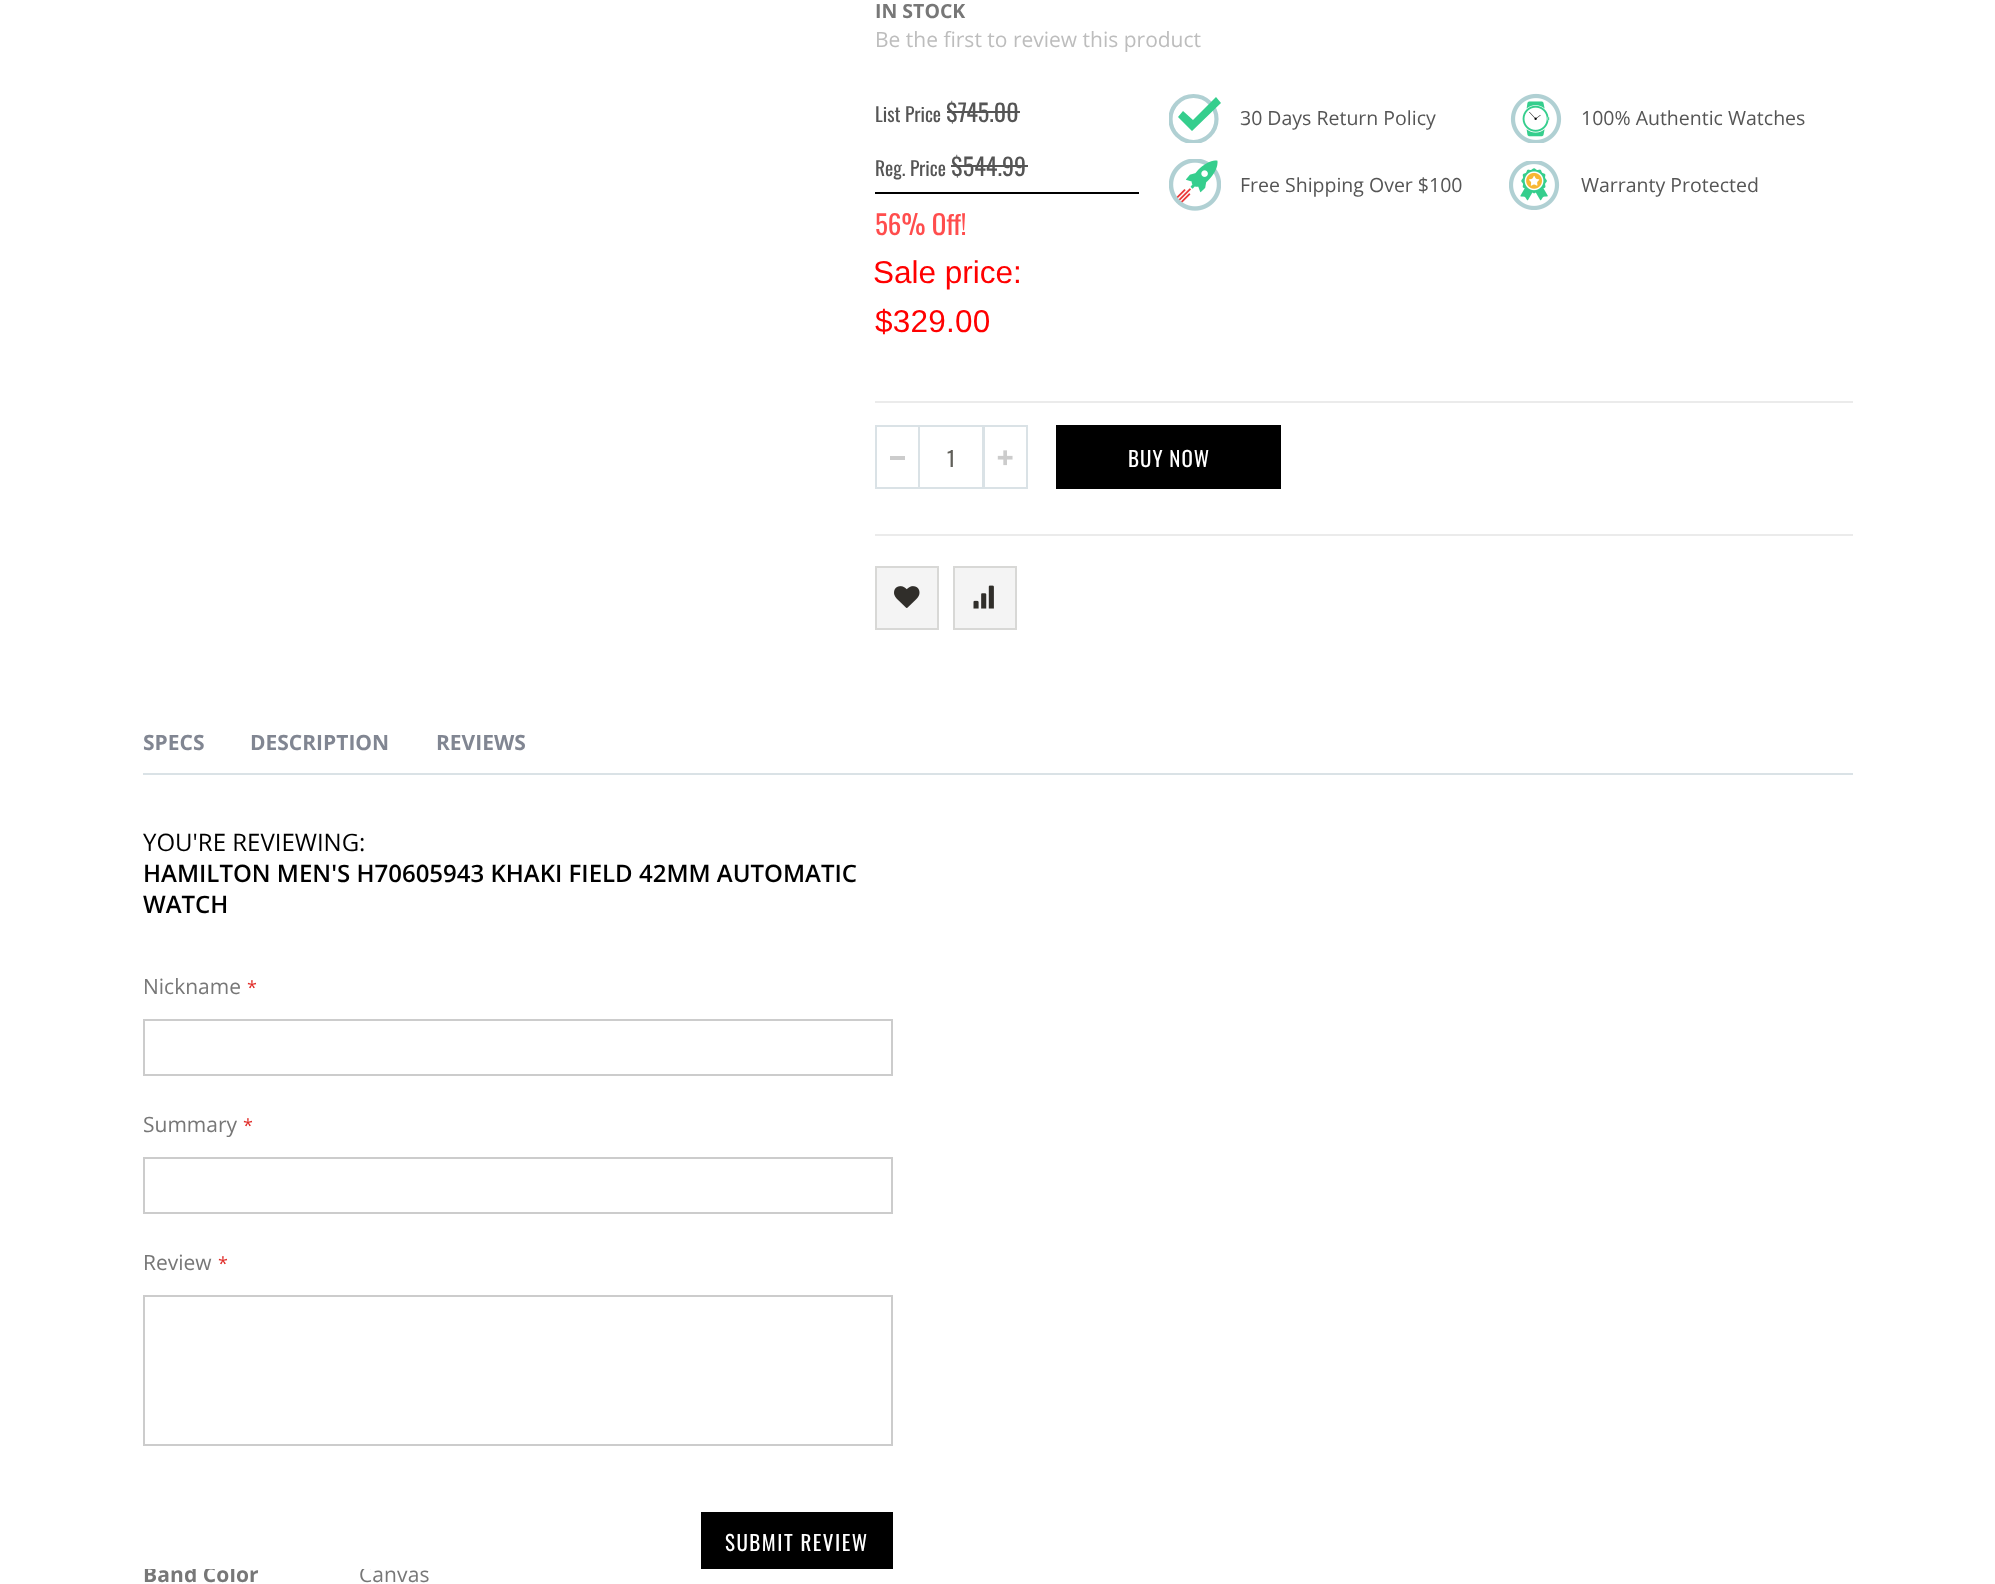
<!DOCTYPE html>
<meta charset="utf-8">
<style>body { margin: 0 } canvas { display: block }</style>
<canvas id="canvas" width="1995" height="1584"></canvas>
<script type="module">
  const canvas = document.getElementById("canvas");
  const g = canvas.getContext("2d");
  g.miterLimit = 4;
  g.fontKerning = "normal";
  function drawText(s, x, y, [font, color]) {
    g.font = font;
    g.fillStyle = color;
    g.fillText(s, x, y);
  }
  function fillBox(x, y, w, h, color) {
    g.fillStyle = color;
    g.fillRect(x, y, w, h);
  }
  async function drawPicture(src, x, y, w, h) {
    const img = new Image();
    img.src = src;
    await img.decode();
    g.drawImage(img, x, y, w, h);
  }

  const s1 = ["bold 19.5px Open Sans", "#777777"];
  const s2 = ["21px Open Sans", "#BDBDBD"];
  const s3 = ["19.5px Oswald", "#555555"];
  const s4 = ["24px Oswald", "#555555"];
  const s5 = ["27px Oswald", "#FF4D4D"];
  const s6 = ["31.5px Liberation Sans", "#FF0000"];
  const s7 = ["19.5px Open Sans", "#555555"];
  const s8 = ["21px Oswald", "#61605A"];
  const s9 = ["21px Oswald", "#FFFFFF"];
  const s10 = ["bold 21px Open Sans", "#818692"];
  const s11 = ["bold 21px Open Sans", "#777777"];
  const s12 = ["21px Open Sans", "#777777"];
  const s13 = ["24px Open Sans", "#000000"];
  const s14 = ["600 24px Open Sans", "#000000"];
  const s15 = ["18px Open Sans", "#E02B27"];

  fillBox(0, 0, 1995, 1584, "#FFFFFF");
  drawText("IN STOCK", 875, 18, s1);
  drawText("Be the first to review this product", 875, 47, s2);
  fillBox(875, 401, 978, 2, "#EBEBEB");
  drawText("List Price", 875, 122, s3);
  drawText("$745.00", 946, 122, s4);
  fillBox(947, 111, 73, 2, "#555555");
  drawText("Reg. Price", 875, 176, s3);
  drawText("$544.99", 951, 176, s4);
  fillBox(951, 165, 77, 2, "#555555");
  fillBox(875, 192, 264, 2, "#000000");
  drawText("56% Off!", 875, 235, s5);
  drawText("Sale price:", 873, 283, s6);
  g.letterSpacing = "0.25px";
  drawText("$329.00", 875, 332, s6);
  g.save();
  g.beginPath();
  g.rect(1169, 93, 52, 50);
  g.clip();
  g.beginPath();
  g.arc(1193.5, 119, 23, 0, Math.PI * 2);
  g.strokeStyle = "#B0D0D3";
  g.lineWidth = 4.2;
  g.stroke();
  g.restore();
  g.fillStyle = "#35CE8D";
  g.beginPath();
  g.moveTo(1221, 103);
  g.lineTo(1216, 97);
  g.lineTo(1193, 120);
  g.lineTo(1183, 111);
  g.lineTo(1178, 117);
  g.lineTo(1192, 131);
  g.closePath();
  g.fill();
  g.letterSpacing = "0px";
  drawText("30 Days Return Policy", 1240, 125, s7);
  await drawPicture("pic1.png", 1510, 93, 52, 50);
  drawText("100% Authentic Watches", 1581, 125, s7);
  await drawPicture("pic2.png", 1169, 159, 52, 52);
  drawText("Free Shipping Over $100", 1240, 192, s7);
  await drawPicture("pic3.png", 1509, 161, 51, 49);
  drawText("Warranty Protected", 1581, 192, s7);
  g.strokeStyle = "#DAE2E6";
  g.lineWidth = 2;
  g.strokeRect(919, 426, 64, 62);
  g.strokeRect(876, 426, 43, 62);
  fillBox(890, 456, 15, 4, "#CCCCCC");
  g.strokeRect(984, 426, 43, 62);
  await drawPicture("pic4.png", 997, 450, 16, 16);
  drawText("1", 947, 467, s8);
  fillBox(1056, 425, 225, 64, "#000000");
  g.letterSpacing = "1px";
  drawText("BUY NOW", 1128, 467, s9);
  fillBox(875, 534, 978, 2, "#EBEBEB");
  g.fillStyle = "#F4F4F4";
  g.beginPath();
  g.rect(876, 567, 62, 62);
  g.fill();
  g.strokeStyle = "#D8D8D6";
  g.stroke();
  await drawPicture("pic5.png", 894, 586, 26, 22);
  g.beginPath();
  g.rect(954, 567, 62, 62);
  g.fill();
  g.stroke();
  await drawPicture("pic6.png", 973, 585, 21, 24);
  g.letterSpacing = "0px";
  drawText("SPECS", 143, 750, s10);
  drawText("DESCRIPTION", 250, 750, s10);
  drawText("REVIEWS", 436, 750, s10);
  g.letterSpacing = "0.1px";
  drawText("Band Color", 143, 1582, s11);
  drawText("Canvas", 359, 1582, s12);
  fillBox(144, 1566, 228, 3, "#FFFFFF");
  fillBox(143, 773, 1710, 2, "#DAE2E6");
  g.letterSpacing = "0px";
  drawText("YOU'RE REVIEWING:", 143, 851, s13);
  drawText("HAMILTON MEN'S H70605943 KHAKI FIELD 42MM AUTOMATIC", 143, 882, s14);
  drawText("WATCH", 143, 913, s14);
  drawText("Nickname", 143, 994, s12);
  drawText("*", 247, 994, s15);
  g.strokeStyle = "#CCCCCC";
  g.strokeRect(144, 1020, 748, 55);
  drawText("Summary", 143, 1132, s12);
  drawText("*", 243, 1132, s15);
  g.strokeRect(144, 1158, 748, 55);
  drawText("Review", 143, 1270, s12);
  drawText("*", 218, 1270, s15);
  g.strokeRect(144, 1296, 748, 149);
  fillBox(701, 1512, 192, 57, "#000000");
  g.letterSpacing = "1.5px";
  drawText("SUBMIT REVIEW", 725, 1551, s9);
</script>
